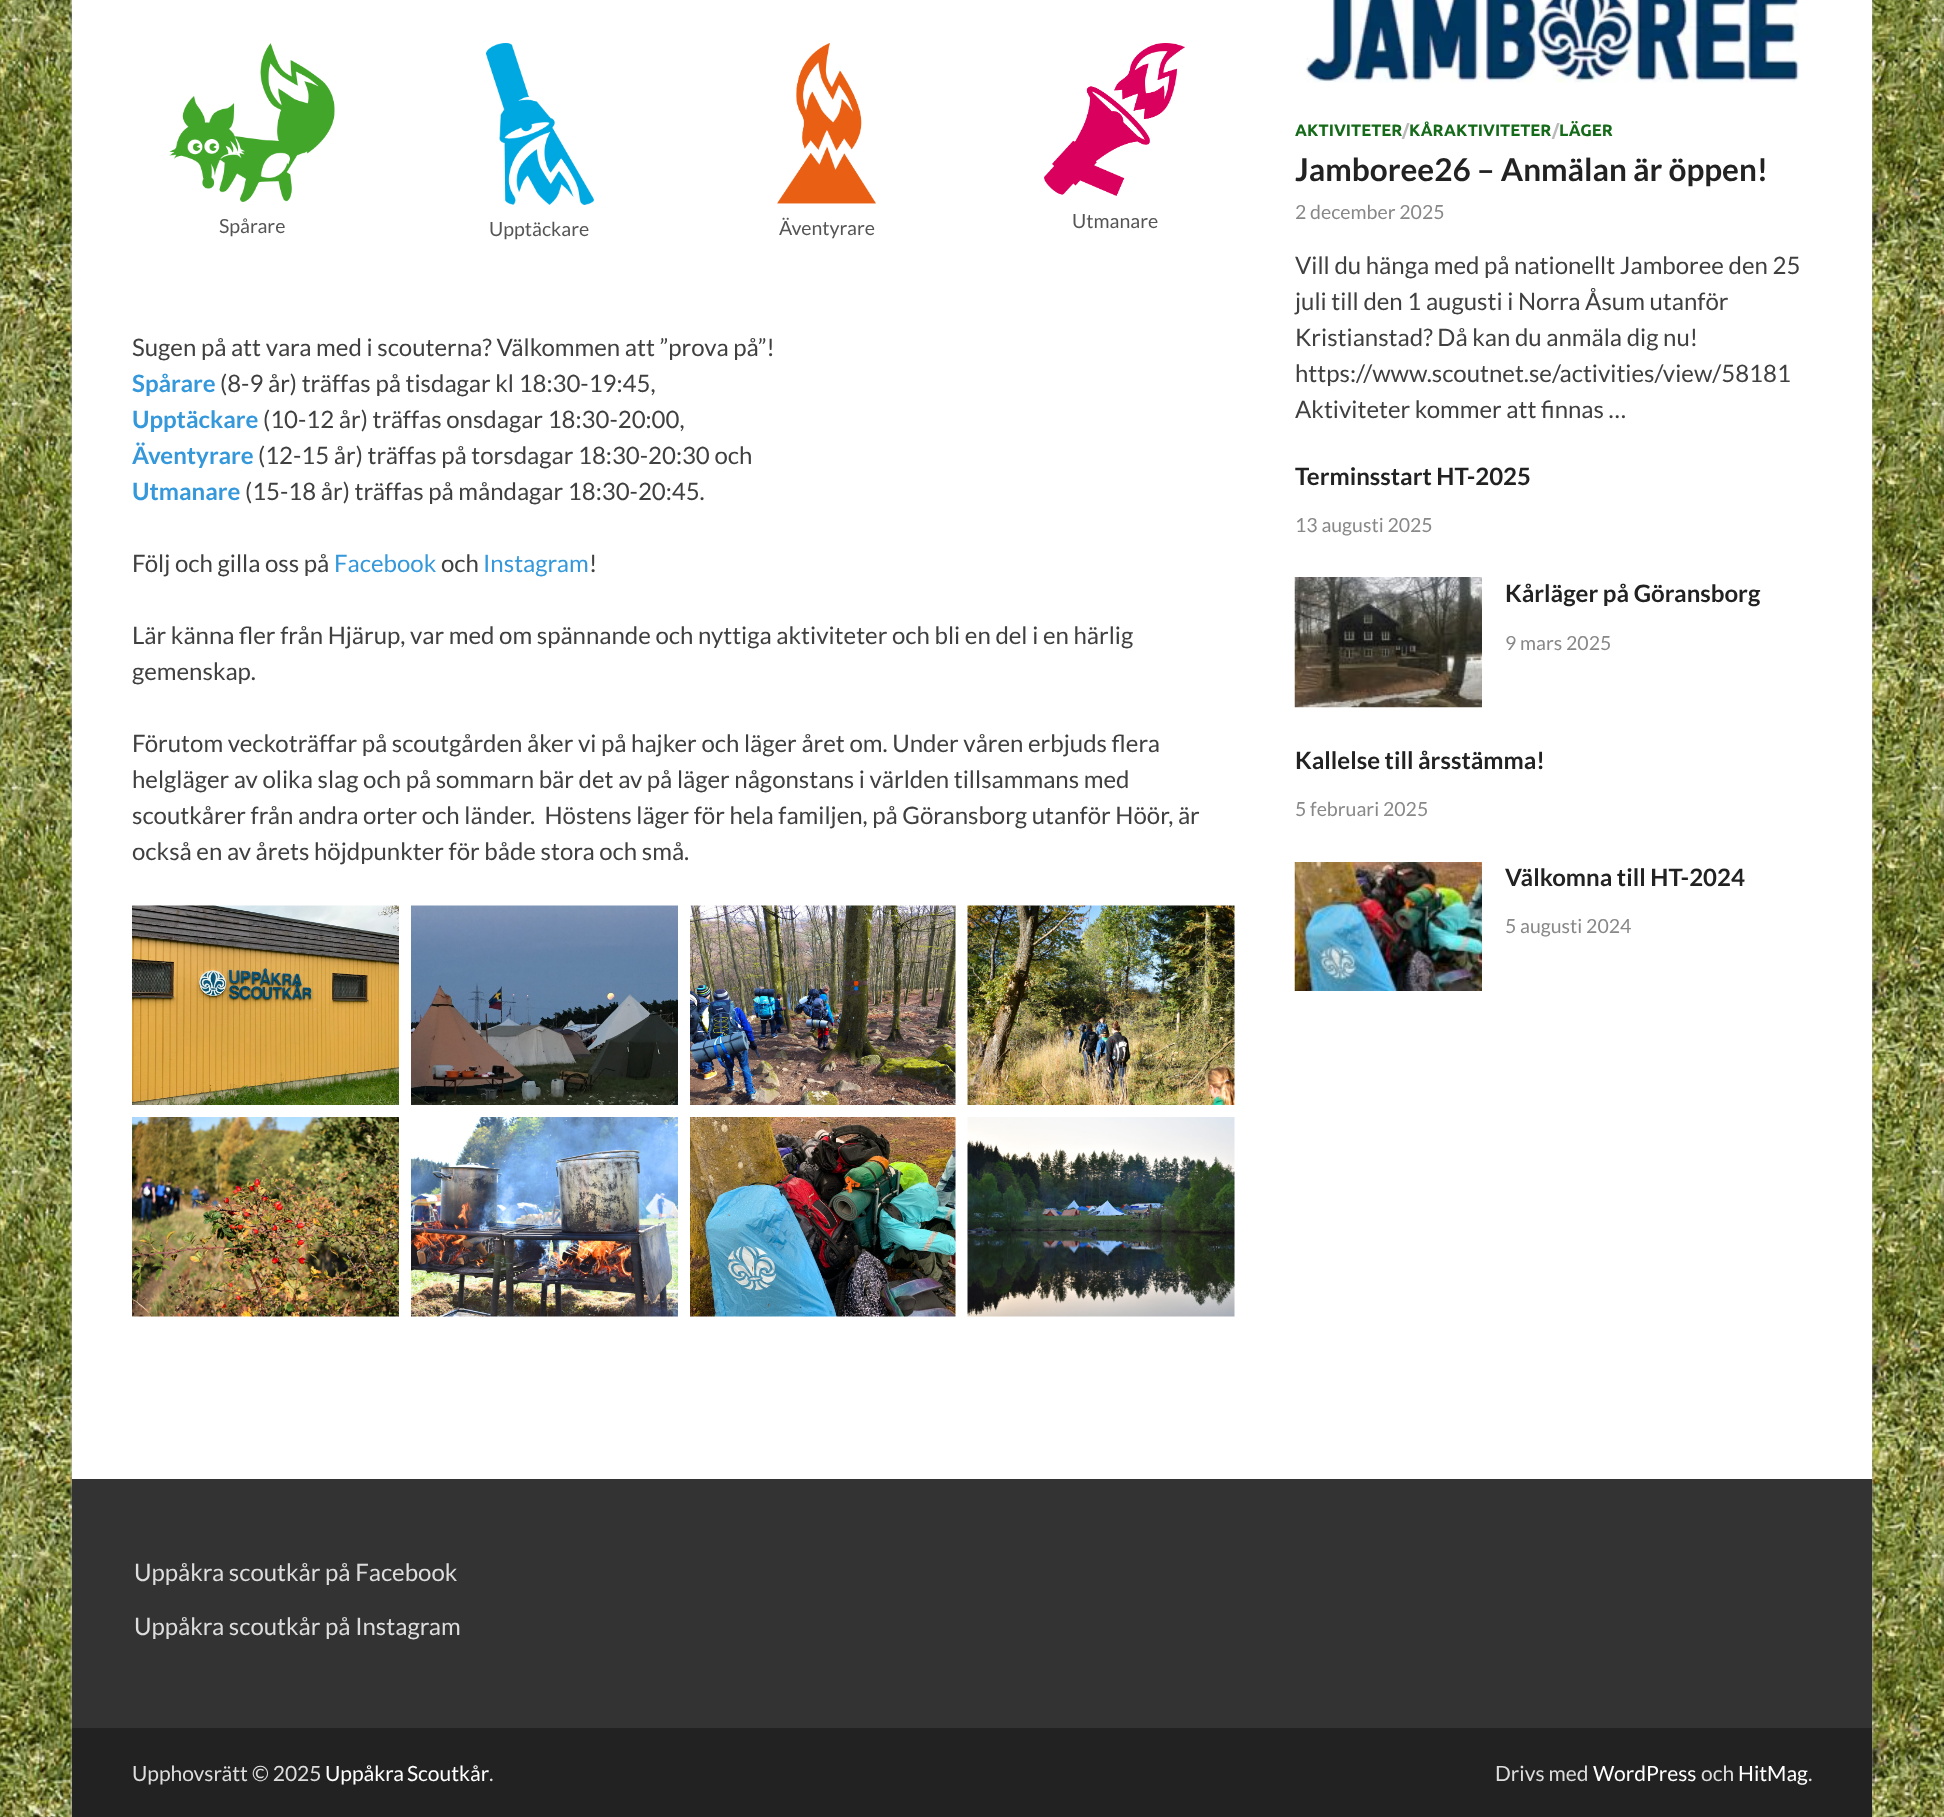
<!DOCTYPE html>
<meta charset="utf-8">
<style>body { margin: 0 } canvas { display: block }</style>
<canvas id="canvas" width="1944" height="1817"></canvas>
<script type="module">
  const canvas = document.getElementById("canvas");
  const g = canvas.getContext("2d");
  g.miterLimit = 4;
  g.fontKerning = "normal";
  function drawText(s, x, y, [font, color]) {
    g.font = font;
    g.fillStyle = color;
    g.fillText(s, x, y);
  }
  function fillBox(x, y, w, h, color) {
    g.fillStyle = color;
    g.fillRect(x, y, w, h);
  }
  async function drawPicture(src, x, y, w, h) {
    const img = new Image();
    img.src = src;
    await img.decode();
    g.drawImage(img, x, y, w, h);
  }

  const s1 = ["19.5px Lato", "#555555"];
  const s2 = ["24px Lato", "#404040"];
  const s3 = ["bold 24px Lato", "#3498DB"];
  const s4 = ["24px Lato", "#3498DB"];
  const s5 = ["bold 16.5px Ubuntu", "#166B1A"];
  const s6 = ["bold 16.5px Ubuntu", "#BBBBBB"];
  const s7 = ["bold 31.5px Lato", "#222222"];
  const s8 = ["19.5px Lato", "#888888"];
  const s9 = ["bold 24px Lato", "#222222"];
  const s10 = ["24px Lato", "#DDDDDD"];
  const s11 = ["21px Lato", "#DDDDDD"];
  const s12 = ["21px Lato", "#FFFFFF"];

  fillBox(0, 0, 1944, 1817, "#FFFFFF");
  await drawPicture("pic1.png", 0, 0, 1944, 1817);
  g.fillStyle = "#BBBBBB";
  g.filter = "blur(1.5px)";
  g.beginPath();
  g.rect(72, -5, 1800, 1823);
  g.fill();
  g.filter = "none";
  fillBox(72, 0, 1800, 1479, "#FFFFFF");
  await drawPicture("pic2.png", 169, 43, 166, 159);
  drawText("Spårare", 219, 233, s1);
  await drawPicture("pic3.png", 486, 43, 108, 162);
  drawText("Upptäckare", 489, 236, s1);
  await drawPicture("pic4.png", 777, 43, 99, 161);
  drawText("Äventyrare", 779, 235, s1);
  await drawPicture("pic5.png", 1044, 43, 141, 153);
  drawText("Utmanare", 1072, 228, s1);
  drawText("Sugen på att vara med i scouterna? Välkommen att ”prova på”!", 132, 356, s2);
  drawText("Spårare", 132, 392, s3);
  drawText("(8-9 år) träffas på tisdagar kl 18:30-19:45,", 220, 392, s2);
  drawText("Upptäckare", 132, 428, s3);
  drawText("(10-12 år) träffas onsdagar 18:30-20:00,", 263, 428, s2);
  drawText("Äventyrare", 132, 464, s3);
  drawText("(12-15 år) träffas på torsdagar 18:30-20:30 och", 258, 464, s2);
  drawText("Utmanare", 132, 500, s3);
  drawText("(15-18 år) träffas på måndagar 18:30-20:45.", 245, 500, s2);
  drawText("Följ och gilla oss på", 132, 572, s2);
  drawText("Facebook", 334, 572, s4);
  drawText("och", 441, 572, s2);
  drawText("Instagram", 483, 572, s4);
  drawText("!", 589, 572, s2);
  drawText("Lär känna fler från Hjärup, var med om spännande och nyttiga aktiviteter och bli en del i en härlig", 132, 644, s2);
  drawText("gemenskap.", 132, 680, s2);
  drawText("Förutom veckoträffar på scoutgården åker vi på hajker och läger året om. Under våren erbjuds flera", 132, 752, s2);
  drawText("helgläger av olika slag och på sommarn bär det av på läger någonstans i världen tillsammans med", 132, 788, s2);
  drawText("scoutkårer från andra orter och länder.  Höstens läger för hela familjen, på Göransborg utanför Höör, är", 132, 824, s2);
  drawText("också en av årets höjdpunkter för både stora och små.", 132, 860, s2);
  await drawPicture("pic6.png", 132, 905, 267, 200);
  await drawPicture("pic7.png", 411, 905, 267, 200);
  await drawPicture("pic8.png", 690, 905, 266, 200);
  await drawPicture("pic9.png", 967, 905, 268, 200);
  await drawPicture("pic10.png", 132, 1117, 267, 200);
  await drawPicture("pic11.png", 411, 1117, 267, 200);
  await drawPicture("pic12.png", 690, 1117, 266, 200);
  await drawPicture("pic13.png", 967, 1117, 268, 200);
  await drawPicture("pic14.png", 1306, 0, 494, 83);
  drawText("AKTIVITETER", 1295, 136, s5);
  drawText("/", 1402, 136, s6);
  drawText("KÅRAKTIVITETER", 1409, 136, s5);
  drawText("/", 1552, 136, s6);
  drawText("LÄGER", 1559, 136, s5);
  drawText("Jamboree26 – Anmälan är öppen!", 1295, 181, s7);
  drawText("2 december 2025", 1295, 219, s8);
  drawText("Vill du hänga med på nationellt Jamboree den 25", 1295, 274, s2);
  drawText("juli till den 1 augusti i Norra Åsum utanför", 1295, 310, s2);
  drawText("Kristianstad? Då kan du anmäla dig nu!", 1295, 346, s2);
  drawText("https://www.scoutnet.se/activities/view/58181", 1295, 382, s2);
  drawText("Aktiviteter kommer att finnas …", 1295, 418, s2);
  drawText("Terminsstart HT-2025", 1295, 485, s9);
  drawText("13 augusti 2025", 1295, 532, s8);
  await drawPicture("pic15.png", 1294, 577, 188, 131);
  drawText("Kårläger på Göransborg", 1505, 602, s9);
  drawText("9 mars 2025", 1505, 650, s8);
  drawText("Kallelse till årsstämma!", 1295, 769, s9);
  drawText("5 februari 2025", 1295, 816, s8);
  await drawPicture("pic16.png", 1294, 862, 188, 129);
  drawText("Välkomna till HT-2024", 1505, 886, s9);
  drawText("5 augusti 2024", 1505, 933, s8);
  fillBox(72, 1479, 1800, 249, "#333333");
  drawText("Uppåkra scoutkår på Facebook", 134, 1581, s10);
  drawText("Uppåkra scoutkår på Instagram", 134, 1635, s10);
  fillBox(72, 1728, 1800, 89, "#222222");
  drawText("Upphovsrätt © 2025", 132, 1781, s11);
  g.wordSpacing = "-1px";
  drawText("Uppåkra Scoutkår", 325, 1781, s12);
  g.wordSpacing = "0px";
  drawText(".", 489, 1781, s11);
  drawText("Drivs med", 1495, 1781, s11);
  drawText("WordPress", 1593, 1781, s12);
  drawText("och", 1701, 1781, s11);
  drawText("HitMag", 1738, 1781, s12);
  drawText(".", 1808, 1781, s11);
</script>
